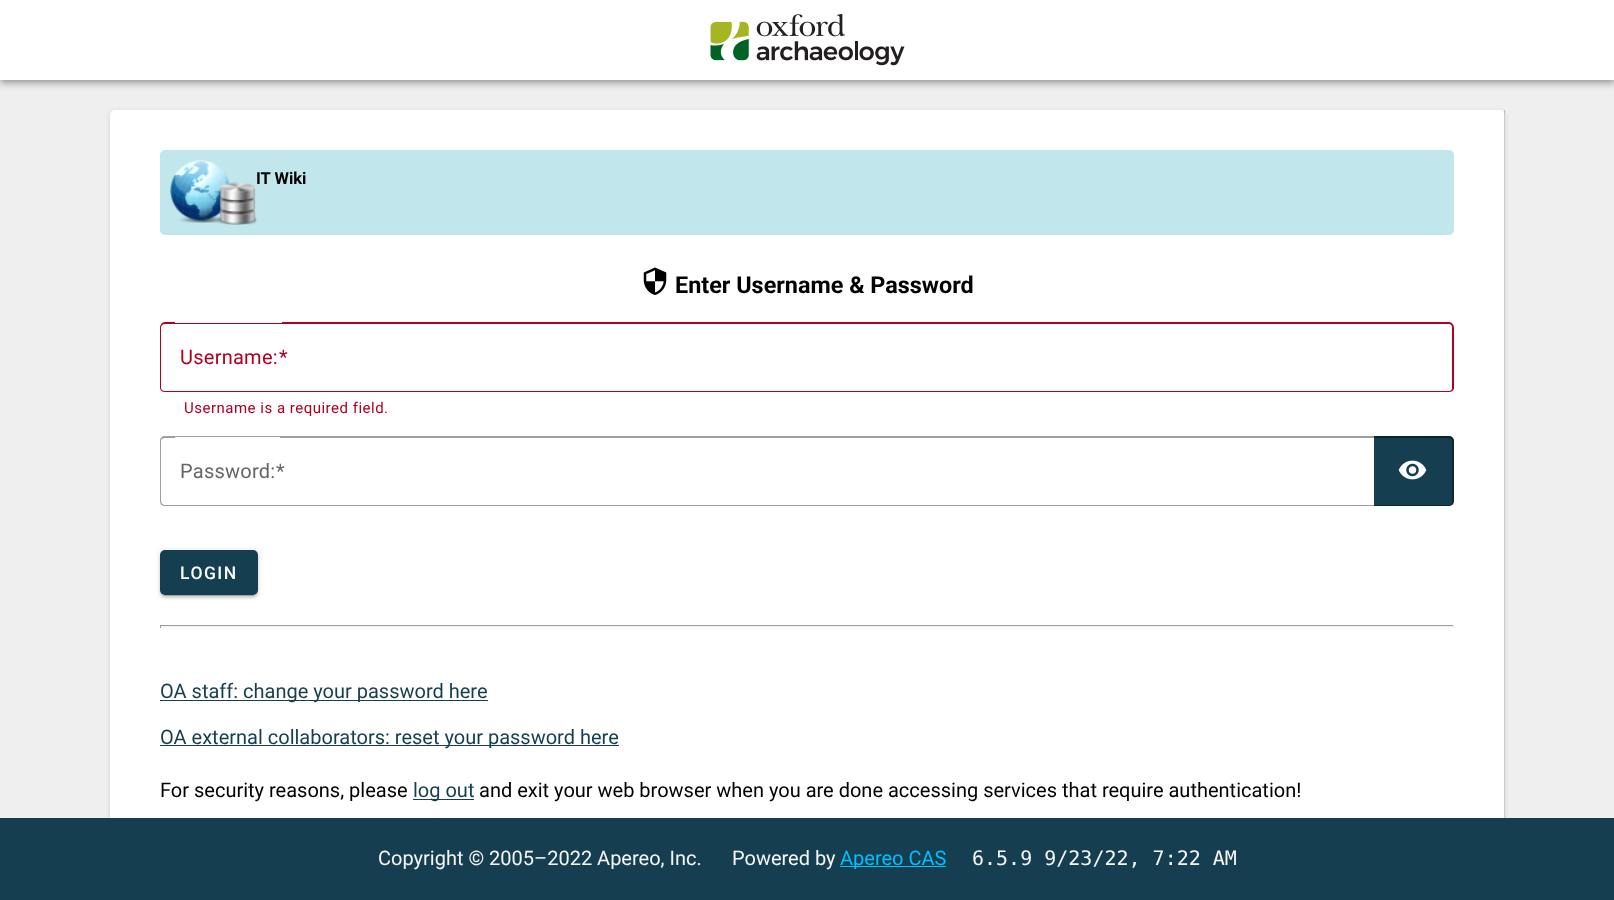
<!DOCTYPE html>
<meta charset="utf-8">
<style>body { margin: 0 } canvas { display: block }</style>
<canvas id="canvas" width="1614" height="900"></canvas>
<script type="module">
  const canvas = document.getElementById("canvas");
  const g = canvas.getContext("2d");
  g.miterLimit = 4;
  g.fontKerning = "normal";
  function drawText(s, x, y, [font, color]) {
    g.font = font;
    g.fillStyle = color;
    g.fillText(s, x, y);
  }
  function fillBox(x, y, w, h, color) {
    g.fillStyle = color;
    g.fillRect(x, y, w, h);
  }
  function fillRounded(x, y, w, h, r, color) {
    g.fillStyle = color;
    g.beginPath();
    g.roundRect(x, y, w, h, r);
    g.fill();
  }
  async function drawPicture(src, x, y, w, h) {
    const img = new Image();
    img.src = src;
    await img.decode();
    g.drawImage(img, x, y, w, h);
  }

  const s1 = ["bold 16.5px Roboto", "#000000"];
  const s2 = ["bold 23.4px Roboto", "#000000"];
  const s3 = ["20px Roboto", "#B00020"];
  const s4 = ["15px Roboto", "#B00020"];
  const s5 = ["20px Roboto", "#666666"];
  const s6 = ["500 17.5px Roboto", "#FFFFFF"];
  const s7 = ["20px Roboto", "#153E50"];
  const s8 = ["20px Roboto", "#000000"];
  const s9 = ["20px Roboto", "#F5F5F5"];
  const s10 = ["20px Roboto", "#00BFFF"];
  const s11 = ["20px DejaVu Sans Mono", "#F5F5F5"];

  fillBox(0, 0, 1614, 900, "#EFEFEF");
  g.fillStyle = "rgba(0, 0, 0, 0.12)";
  g.filter = "blur(6px)";
  g.beginPath();
  g.rect(0, 1, 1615, 80);
  g.fill();
  g.filter = "none";
  g.fillStyle = "rgba(0, 0, 0, 0.14)";
  g.filter = "blur(3px)";
  g.beginPath();
  g.rect(0, 5, 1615, 80);
  g.fill();
  g.filter = "none";
  g.fillStyle = "rgba(0, 0, 0, 0.2)";
  g.filter = "blur(2.5px)";
  g.beginPath();
  g.rect(1, 4, 1613, 77);
  g.fill();
  g.filter = "none";
  fillBox(0, 0, 1614, 80, "#FFFFFF");
  await drawPicture("pic1.png", 710, 13, 195, 53);
  fillBox(0, 818, 1614, 82, "#153E50");
  fillBox(840, 866, 106, 1, "#00BFFF");
  g.save();
  g.beginPath();
  g.rect(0, 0, 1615, 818);
  g.clip();
  g.fillStyle = "rgba(0, 0, 0, 0.12)";
  g.filter = "blur(2px)";
  g.beginPath();
  g.roundRect(110, 111, 1395, 753, 5);
  g.fill();
  g.filter = "none";
  g.restore();
  g.fillStyle = "#FFFFFF";
  g.beginPath();
  g.roundRect(110, 110, 1395, 708, [5, 5, 0, 0]);
  g.fill();
  fillBox(1504, 110, 1, 708, "rgba(0, 0, 0, 0.2)");
  fillRounded(160, 150, 1294, 85, 5, "#C1E7EC");
  await drawPicture("pic2.png", 170, 160, 87, 65);
  drawText("IT Wiki", 256, 184, s1);
  await drawPicture("pic3.png", 643, 267, 24, 28);
  drawText("Enter Username & Password", 675, 293, s2);
  g.fillStyle = "#B00020";
  g.beginPath();
  g.moveTo(165, 322);
  g.lineTo(175, 322);
  g.lineTo(175, 392);
  g.lineTo(165, 392);
  g.bezierCurveTo(162, 392, 160, 390, 160, 388);
  g.lineTo(160, 328);
  g.bezierCurveTo(160, 325, 162, 322, 165, 322);
  g.closePath();
  g.moveTo(165, 324);
  g.lineTo(175, 324);
  g.lineTo(175, 391);
  g.lineTo(165, 391);
  g.bezierCurveTo(163, 391, 161, 390, 161, 388);
  g.lineTo(161, 328);
  g.bezierCurveTo(161, 325, 163, 324, 165, 324);
  g.closePath();
  g.fill("evenodd");
  fillBox(175, 323, 108, 1, "#B00020");
  fillBox(175, 391, 108, 1, "#B00020");
  g.letterSpacing = "0.25px";
  drawText("Username:", 180, 364, s3);
  g.beginPath();
  g.moveTo(282, 322);
  g.lineTo(1449, 322);
  g.bezierCurveTo(1452, 322, 1454, 325, 1454, 328);
  g.lineTo(1454, 388);
  g.bezierCurveTo(1454, 390, 1452, 392, 1449, 392);
  g.lineTo(282, 392);
  g.closePath();
  g.moveTo(282, 324);
  g.lineTo(1449, 324);
  g.bezierCurveTo(1451, 324, 1452, 325, 1452, 328);
  g.lineTo(1452, 388);
  g.bezierCurveTo(1452, 390, 1451, 391, 1449, 391);
  g.lineTo(282, 391);
  g.closePath();
  g.fill("evenodd");
  drawText("*", 279, 364, s3);
  g.letterSpacing = "0.5px";
  drawText("Username is a required field.", 184, 413, s4);
  g.fillStyle = "#9E9E9E";
  g.beginPath();
  g.moveTo(165, 436);
  g.lineTo(175, 436);
  g.lineTo(175, 506);
  g.lineTo(165, 506);
  g.bezierCurveTo(162, 506, 160, 504, 160, 501);
  g.lineTo(160, 441);
  g.bezierCurveTo(160, 438, 162, 436, 165, 436);
  g.closePath();
  g.moveTo(165, 438);
  g.lineTo(175, 438);
  g.lineTo(175, 505);
  g.lineTo(165, 505);
  g.bezierCurveTo(163, 505, 161, 503, 161, 501);
  g.lineTo(161, 441);
  g.bezierCurveTo(161, 439, 163, 438, 165, 438);
  g.closePath();
  g.fill("evenodd");
  fillBox(175, 436, 105, 1, "#9E9E9E");
  fillBox(175, 505, 105, 1, "#9E9E9E");
  g.letterSpacing = "0.25px";
  drawText("Password:", 180, 478, s5);
  g.fillStyle = "#153E50";
  g.beginPath();
  g.roundRect(1374, 436, 80, 70, [0, 5, 5, 0]);
  g.fill();
  await drawPicture("pic4.png", 1398, 460, 29, 20);
  g.fillStyle = "rgba(0, 0, 0, 0.38)";
  g.beginPath();
  g.moveTo(280, 436);
  g.lineTo(1449, 436);
  g.bezierCurveTo(1452, 436, 1454, 438, 1454, 441);
  g.lineTo(1454, 501);
  g.bezierCurveTo(1454, 504, 1452, 506, 1449, 506);
  g.lineTo(280, 506);
  g.closePath();
  g.moveTo(280, 438);
  g.lineTo(1449, 438);
  g.bezierCurveTo(1451, 438, 1452, 439, 1452, 441);
  g.lineTo(1452, 501);
  g.bezierCurveTo(1452, 503, 1451, 505, 1449, 505);
  g.lineTo(280, 505);
  g.closePath();
  g.fill("evenodd");
  drawText("*", 276, 478, s5);
  g.fillStyle = "rgba(0, 0, 0, 0.12)";
  g.filter = "blur(3px)";
  g.beginPath();
  g.roundRect(160, 551, 98, 45, 5);
  g.fill();
  g.filter = "none";
  g.fillStyle = "rgba(0, 0, 0, 0.14)";
  g.filter = "blur(1px)";
  g.beginPath();
  g.roundRect(160, 553, 98, 45, 5);
  g.fill();
  g.filter = "none";
  g.fillStyle = "rgba(0, 0, 0, 0.2)";
  g.filter = "blur(0.5px)";
  g.beginPath();
  g.roundRect(163, 556, 92, 40, 2.5);
  g.fill();
  g.filter = "none";
  fillRounded(160, 550, 98, 45, 5, "#153E50");
  g.letterSpacing = "1.5px";
  drawText("LOGIN", 180, 579, s6);
  fillBox(160, 625, 1294, 1, "#9F9F9F");
  fillBox(1453, 625, 1, 3, "#EEEEEE");
  fillBox(160, 626, 1294, 1, "#EEEEEE");
  fillBox(160, 625, 1, 3, "#9F9F9F");
  fillBox(160, 700, 328, 1, "#153E50");
  g.letterSpacing = "0px";
  drawText("OA staff: change your password here", 160, 698, s7);
  fillBox(160, 745, 459, 1, "#153E50");
  drawText("OA external collaborators: reset your password here", 160, 744, s7);
  drawText("For security reasons, please", 160, 797, s8);
  fillBox(413, 799, 61, 1, "#153E50");
  drawText("log out", 413, 797, s7);
  drawText("and exit your web browser when you are done accessing services that require authentication!", 479, 797, s8);
  drawText("Copyright © 2005–2022 Apereo, Inc.", 378, 865, s9);
  drawText("Powered by", 732, 865, s9);
  drawText("Apereo CAS", 840, 865, s10);
  drawText("6.5.9 9/23/22, 7:22 AM", 972, 865, s11);
</script>
